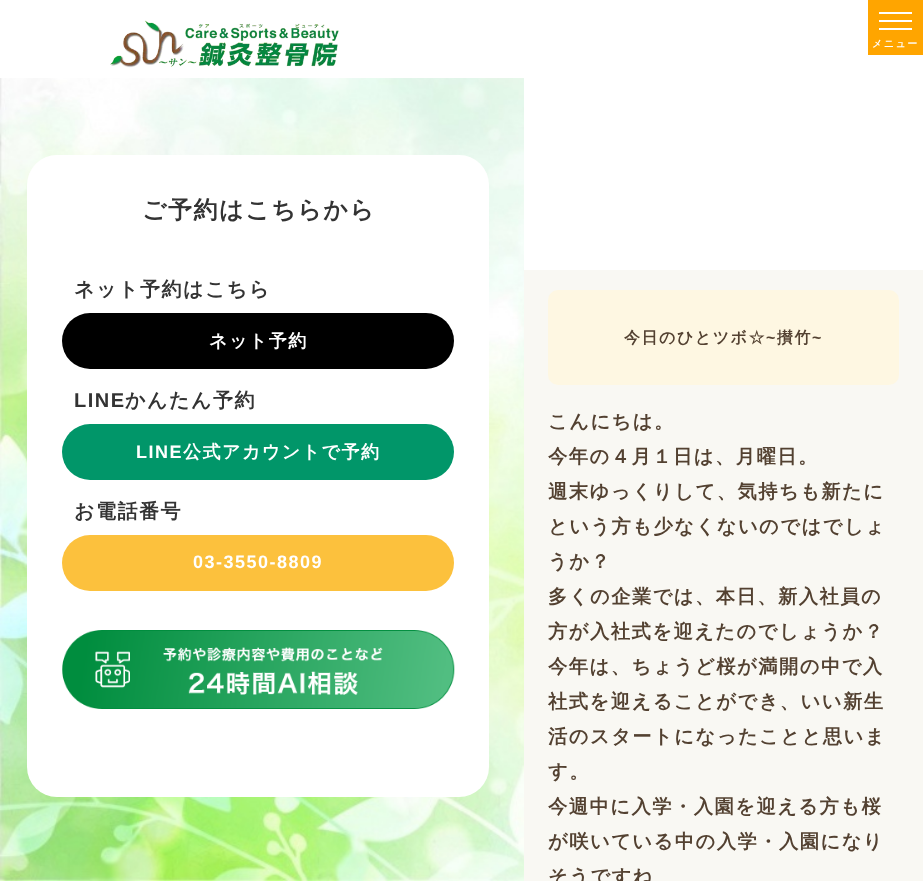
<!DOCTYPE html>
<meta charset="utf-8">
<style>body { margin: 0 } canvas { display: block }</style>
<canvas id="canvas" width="923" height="881"></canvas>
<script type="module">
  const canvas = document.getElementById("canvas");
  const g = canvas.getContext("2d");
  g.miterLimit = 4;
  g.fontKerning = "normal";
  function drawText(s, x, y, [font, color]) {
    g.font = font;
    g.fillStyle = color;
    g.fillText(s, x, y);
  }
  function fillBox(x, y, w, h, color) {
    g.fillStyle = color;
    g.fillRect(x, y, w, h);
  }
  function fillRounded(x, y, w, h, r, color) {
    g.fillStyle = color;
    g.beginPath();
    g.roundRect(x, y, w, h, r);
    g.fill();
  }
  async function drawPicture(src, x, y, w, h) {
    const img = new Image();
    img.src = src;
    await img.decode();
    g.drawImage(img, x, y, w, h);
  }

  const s1 = ["bold 24px WenQuanYi Zen Hei", "#333333"];
  const s2 = ["bold 20px WenQuanYi Zen Hei", "#333333"];
  const s3 = ["bold 18px WenQuanYi Zen Hei", "#FFFFFF"];
  const s4 = ["bold 20px Liberation Sans", "#333333"];
  const s5 = ["bold 18px Liberation Sans", "#FFFFFF"];
  const s6 = ["bold 10px WenQuanYi Zen Hei", "#FFFFFF"];
  const s7 = ["bold 16px WenQuanYi Zen Hei", "#534131"];
  const s8 = ["bold 16px Liberation Sans", "#534131"];
  const s9 = ["bold 19.25px WenQuanYi Zen Hei", "#534131"];

  fillBox(0, 0, 923, 881, "#FFFFFF");
  await drawPicture("pic1.png", 0, 78, 524, 803);
  fillRounded(27, 155, 462, 642, 30, "#FFFFFF");
  g.letterSpacing = "1.5px";
  drawText("ご予約はこちらから", 142, 218, s1);
  drawText("ネット予約はこちら", 74, 296, s2);
  fillRounded(62, 313, 392, 56, 28, "#000000");
  drawText("ネット予約", 209, 347, s3);
  drawText("LINE", 74, 407, s4);
  drawText("かんたん予約", 125, 407, s2);
  fillRounded(62, 424, 392, 56, 28, "#019669");
  drawText("LINE", 136, 458, s5);
  drawText("公式アカウントで予約", 183, 458, s3);
  drawText("お電話番号", 74, 518, s2);
  fillRounded(62, 535, 392, 56, 28, "#FCC13D");
  drawText("03-3550-8809", 193, 568, s5);
  await drawPicture("pic2.png", 62, 630, 393, 79);
  await drawPicture("pic3.png", 110, 20, 229, 48);
  fillBox(868, 0, 55, 55, "#FFA500");
  fillBox(879, 12, 33, 2, "#FFFFFF");
  fillBox(879, 20, 33, 2, "#FFFFFF");
  fillBox(879, 28, 33, 2, "#FFFFFF");
  drawText("メニュー", 872, 47, s6);
  fillBox(524, 270, 399, 611, "#F9F8F3");
  fillRounded(548, 290, 351, 95, 10, "#FEF7E2");
  drawText("今日のひとツボ☆", 624, 343, s7);
  drawText("~", 766, 343, s8);
  drawText("攅竹", 777, 343, s7);
  drawText("~", 812, 343, s8);
  drawText("こんにちは。", 548, 428, s9);
  drawText("今年の４月１日は、月曜日。", 548, 463, s9);
  drawText("週末ゆっくりして、気持ちも新たに", 548, 498, s9);
  drawText("という方も少なくないのではでしょ", 548, 533, s9);
  drawText("うか？", 548, 568, s9);
  drawText("多くの企業では、本日、新入社員の", 548, 603, s9);
  drawText("方が入社式を迎えたのでしょうか？", 548, 638, s9);
  drawText("今年は、ちょうど桜が満開の中で入", 548, 673, s9);
  drawText("社式を迎えることができ、いい新生", 548, 708, s9);
  drawText("活のスタートになったことと思いま", 548, 743, s9);
  drawText("す。", 548, 778, s9);
  drawText("今週中に入学・入園を迎える方も桜", 548, 813, s9);
  drawText("が咲いている中の入学・入園になり", 548, 848, s9);
  drawText("そうですね", 548, 883, s9);
</script>
